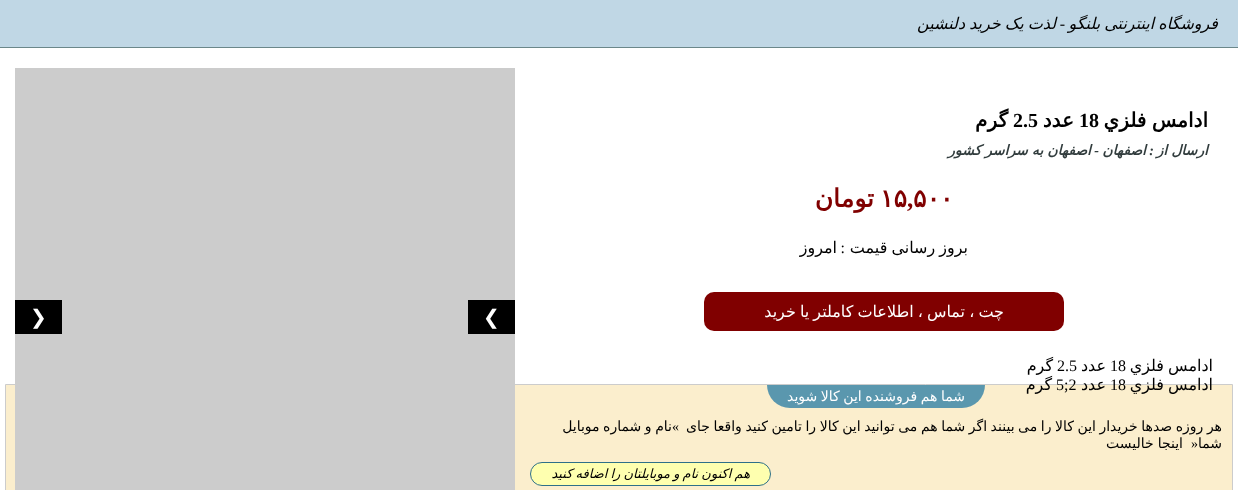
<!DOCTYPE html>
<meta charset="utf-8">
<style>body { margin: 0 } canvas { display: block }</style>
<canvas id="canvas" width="1238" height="490"></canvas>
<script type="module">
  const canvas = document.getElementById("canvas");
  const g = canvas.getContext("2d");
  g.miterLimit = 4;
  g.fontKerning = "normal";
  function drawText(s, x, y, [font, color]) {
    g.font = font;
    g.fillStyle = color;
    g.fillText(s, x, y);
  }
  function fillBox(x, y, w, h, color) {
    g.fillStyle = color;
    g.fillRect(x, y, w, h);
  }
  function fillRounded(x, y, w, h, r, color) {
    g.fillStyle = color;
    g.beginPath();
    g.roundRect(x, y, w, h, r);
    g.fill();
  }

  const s1 = ["italic 16px DejaVu Sans", "#000000"];
  const s2 = ["italic 16px Liberation Serif", "#000000"];
  const s3 = ["bold 20px DejaVu Sans", "#000000"];
  const s4 = ["bold 20px Liberation Serif", "#000000"];
  const s5 = ["italic bold 14px DejaVu Sans", "#313C3D"];
  const s6 = ["italic bold 14px Liberation Serif", "#313C3D"];
  const s7 = ["bold 25px DejaVu Sans", "#800000"];
  const s8 = ["bold 25px Liberation Serif", "#800000"];
  const s9 = ["16px DejaVu Sans", "#000000"];
  const s10 = ["16px Liberation Serif", "#000000"];
  const s11 = ["16px DejaVu Sans", "#FFFFFF"];
  const s12 = ["20px DejaVu Sans", "#FFFFFF"];
  const s13 = ["14px DejaVu Sans", "#FFFFFF"];
  const s14 = ["14px DejaVu Sans", "#000000"];
  const s15 = ["14px Liberation Serif", "#000000"];
  const s16 = ["italic 13px DejaVu Sans", "#000000"];

  fillBox(0, 0, 1238, 490, "#FFFFFF");
  fillBox(0, 0, 1238, 47, "#C0D7E5");
  fillBox(0, 47, 1238, 1, "#6B878A");
  g.wordSpacing = "-1px";
  g.direction = "rtl";
  drawText("فروشگاه اینترنتی بلنگو", 1218, 29, s1);
  g.wordSpacing = "0px";
  drawText("-", 1065, 29, s2);
  g.wordSpacing = "-1px";
  drawText("لذت یک خرید دلنشین", 1056, 29, s1);
  drawText("ادامس فلزي", 1208, 127, s3);
  g.wordSpacing = "0px";
  g.direction = "ltr";
  drawText("18", 1079, 127, s4);
  g.direction = "rtl";
  drawText("عدد", 1074, 127, s3);
  g.direction = "ltr";
  drawText("2.5", 1013, 127, s4);
  g.direction = "rtl";
  drawText("گرم", 1008, 127, s3);
  g.wordSpacing = "-0.5px";
  drawText("ارسال از", 1208, 155, s5);
  g.wordSpacing = "0px";
  drawText(":", 1154, 155, s6);
  drawText("اصفهان", 1146, 155, s5);
  drawText("-", 1099, 155, s6);
  g.wordSpacing = "-0.5px";
  drawText("اصفهان به سراسر کشور", 1091, 155, s5);
  g.wordSpacing = "0px";
  g.direction = "ltr";
  drawText("۵۰۰", 913, 207, s7);
  drawText(",", 907, 207, s8);
  drawText("۱۵", 880, 207, s7);
  g.direction = "rtl";
  drawText("تومان", 874, 207, s7);
  g.wordSpacing = "-1px";
  drawText("بروز رسانی قیمت", 968, 253, s9);
  g.wordSpacing = "0px";
  drawText(":", 845, 253, s10);
  drawText("امروز", 837, 253, s9);
  fillRounded(704, 292, 360, 39, 10, "#800000");
  g.wordSpacing = "-1px";
  drawText("چت ، تماس ، اطلاعات کاملتر یا خرید", 1004, 317, s11);
  g.fillStyle = "#FBEECD";
  g.beginPath();
  g.rect(5.5, 384.5, 1227, 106);
  g.fill();
  g.strokeStyle = "#CCCCCC";
  g.stroke();
  fillBox(15, 68, 500, 422, "#CCCCCC");
  fillBox(468, 300, 47, 34, "#000000");
  g.wordSpacing = "0px";
  g.direction = "ltr";
  drawText("❮", 483, 324, s12);
  fillBox(15, 300, 47, 34, "#000000");
  drawText("❯", 30, 324, s12);
  g.wordSpacing = "-1px";
  g.direction = "rtl";
  drawText("ادامس فلزي", 1213, 371, s9);
  g.wordSpacing = "0px";
  g.direction = "ltr";
  drawText("18", 1110, 371, s10);
  g.direction = "rtl";
  drawText("عدد", 1106, 371, s9);
  g.direction = "ltr";
  drawText("2.5", 1057, 371, s10);
  g.direction = "rtl";
  drawText("گرم", 1053, 371, s9);
  g.wordSpacing = "-1px";
  drawText("ادامس فلزي", 1213, 390, s9);
  g.wordSpacing = "0px";
  g.direction = "ltr";
  drawText("18", 1110, 390, s10);
  g.direction = "rtl";
  drawText("عدد", 1106, 390, s9);
  g.direction = "ltr";
  drawText("5;2", 1056, 390, s10);
  g.direction = "rtl";
  drawText("گرم", 1052, 390, s9);
  g.fillStyle = "#5A97AE";
  g.beginPath();
  g.roundRect(767, 385, 218, 23, [0, 0, 23, 23]);
  g.fill();
  g.wordSpacing = "-0.9px";
  drawText("شما هم فروشنده این کالا شوید", 965, 401, s13);
  drawText("هر روزه صدها خریدار این کالا را می بینند اگر شما هم می توانید این کالا را تامین کنید واقعا جای", 1222, 431, s14);
  g.wordSpacing = "0px";
  g.direction = "ltr";
  drawText("«", 672, 431, s15);
  g.wordSpacing = "-0.9px";
  g.direction = "rtl";
  drawText("نام و شماره موبایل", 672, 431, s14);
  g.wordSpacing = "0px";
  drawText("شما", 1222, 448, s14);
  g.direction = "ltr";
  drawText("»", 1191, 448, s15);
  g.wordSpacing = "-0.5px";
  g.direction = "rtl";
  drawText("اینجا خالیست", 1183, 448, s14);
  g.fillStyle = "#FEFFAF";
  g.beginPath();
  g.roundRect(530.5, 462.5, 240, 23, 11.5);
  g.fill();
  g.strokeStyle = "#2E7089";
  g.stroke();
  g.wordSpacing = "-1px";
  drawText("هم اکنون نام و موبایلتان را اضافه کنید", 750, 478, s16);
</script>
